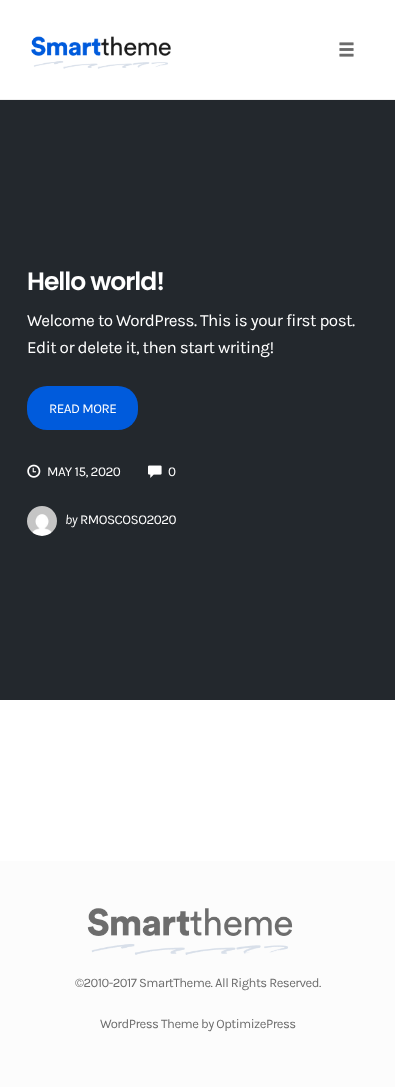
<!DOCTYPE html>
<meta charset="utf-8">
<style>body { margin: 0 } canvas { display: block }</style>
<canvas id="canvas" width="395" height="1087"></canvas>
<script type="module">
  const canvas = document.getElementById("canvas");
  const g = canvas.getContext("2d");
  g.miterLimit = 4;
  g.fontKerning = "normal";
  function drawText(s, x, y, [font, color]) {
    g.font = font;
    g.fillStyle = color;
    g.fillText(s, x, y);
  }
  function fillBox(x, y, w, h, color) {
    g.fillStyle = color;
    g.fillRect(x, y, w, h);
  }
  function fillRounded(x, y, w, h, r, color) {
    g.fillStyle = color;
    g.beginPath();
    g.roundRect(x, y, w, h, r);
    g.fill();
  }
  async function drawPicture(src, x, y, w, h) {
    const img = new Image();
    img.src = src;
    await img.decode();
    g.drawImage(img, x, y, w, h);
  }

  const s1 = ["600 25px Poppins", "#FFFFFF"];
  const s2 = ["17px Karla", "#FFFFFF"];
  const s3 = ["13.5px Karla", "#FFFFFF"];
  const s4 = ["italic 13.5px Karla", "#FFFFFF"];
  const s5 = ["13px Karla", "#6D6D6D"];

  fillBox(0, 0, 395, 1087, "#FFFFFF");
  fillBox(0, 99, 395, 1, "#F0F0F0");
  await drawPicture("pic1.png", 31, 36, 140, 33);
  await drawPicture("pic2.png", 339, 42, 15, 15);
  fillBox(0, 100, 395, 600, "#23282D");
  g.letterSpacing = "-1px";
  drawText("Hello world!", 27, 290, s1);
  g.letterSpacing = "-0.5px";
  drawText("Welcome to WordPress. This is your first post.", 27, 326, s2);
  drawText("Edit or delete it, then start writing!", 27, 353, s2);
  fillRounded(27, 386, 111, 44, 20, "#005BDC");
  drawText("READ MORE", 49, 413, s3);
  await drawPicture("pic3.png", 27, 464, 14, 14);
  drawText("MAY 15, 2020", 47, 476, s3);
  await drawPicture("pic4.png", 148, 465, 14, 13);
  drawText("0", 168, 476, s3);
  await drawPicture("pic5.png", 27, 506, 30, 30);
  drawText("by", 65, 524, s4);
  drawText("RMOSCOSO2020", 80, 524, s3);
  fillBox(0, 861, 395, 226, "#FCFCFC");
  await drawPicture("pic6.png", 87, 908, 206, 47);
  drawText("©2010-2017 SmartTheme. All Rights Reserved.", 75, 987, s5);
  drawText("WordPress Theme by OptimizePress", 100, 1028, s5);
</script>
